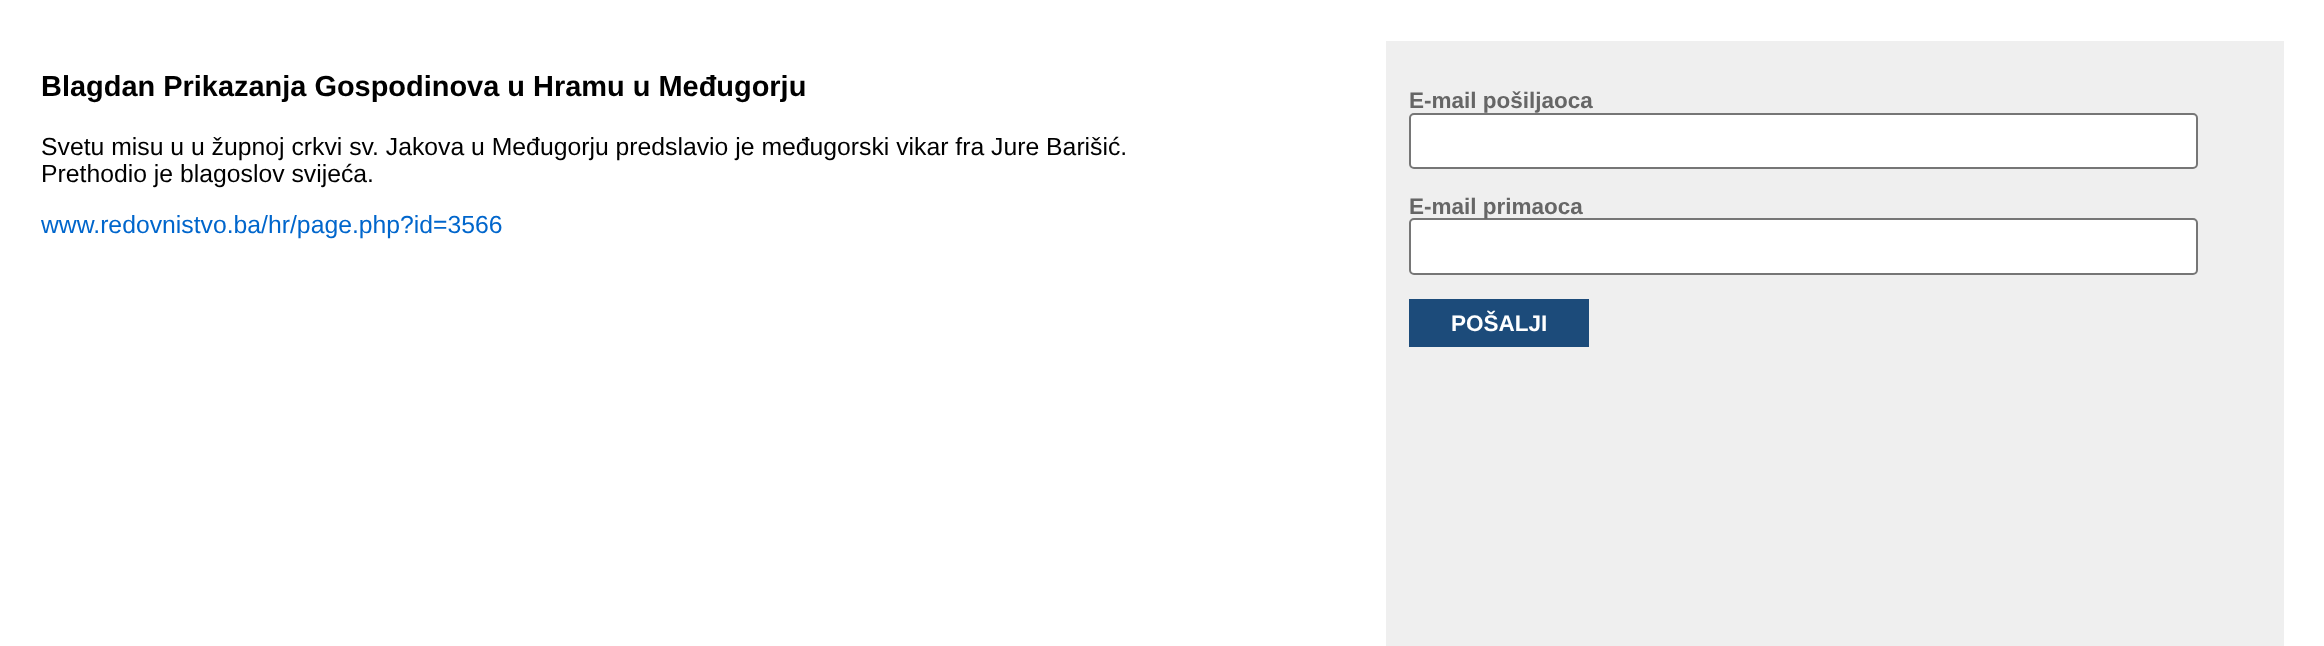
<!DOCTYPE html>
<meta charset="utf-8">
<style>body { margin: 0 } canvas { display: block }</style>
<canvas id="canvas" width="2324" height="646"></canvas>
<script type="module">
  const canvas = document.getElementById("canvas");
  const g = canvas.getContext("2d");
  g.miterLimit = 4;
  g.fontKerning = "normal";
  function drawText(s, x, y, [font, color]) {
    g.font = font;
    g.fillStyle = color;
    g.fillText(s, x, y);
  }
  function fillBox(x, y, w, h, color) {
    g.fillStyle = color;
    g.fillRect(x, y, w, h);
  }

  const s1 = ["bold 28.95px Liberation Sans", "#000000"];
  const s2 = ["24.75px Liberation Sans", "#000000"];
  const s3 = ["24.75px Liberation Sans", "#0066CC"];
  const s4 = ["bold 22.5px Liberation Sans", "#666666"];
  const s5 = ["bold 22.5px Liberation Sans", "#FFFFFF"];

  fillBox(0, 0, 2324, 646, "#FFFFFF");
  drawText("Blagdan Prikazanja Gospodinova u Hramu u Međugorju", 41, 96, s1);
  drawText("Svetu misu u u župnoj crkvi sv. Jakova u Međugorju predslavio je međugorski vikar fra Jure Barišić.", 41, 155, s2);
  drawText("Prethodio je blagoslov svijeća.", 41, 182, s2);
  drawText("www.redovnistvo.ba/hr/page.php?id=3566", 41, 233, s3);
  fillBox(1386, 41, 898, 605, "#EFEFEF");
  drawText("E-mail pošiljaoca", 1409, 108, s4);
  g.fillStyle = "#FFFFFF";
  g.beginPath();
  g.roundRect(1410, 114, 787, 54, 4);
  g.fill();
  g.strokeStyle = "#767676";
  g.lineWidth = 2;
  g.stroke();
  g.beginPath();
  g.roundRect(1410, 219, 787, 55, 4);
  g.fill();
  g.stroke();
  drawText("E-mail primaoca", 1409, 214, s4);
  fillBox(1409, 299, 180, 48, "#1C4B7A");
  drawText("POŠALJI", 1451, 331, s5);
</script>
